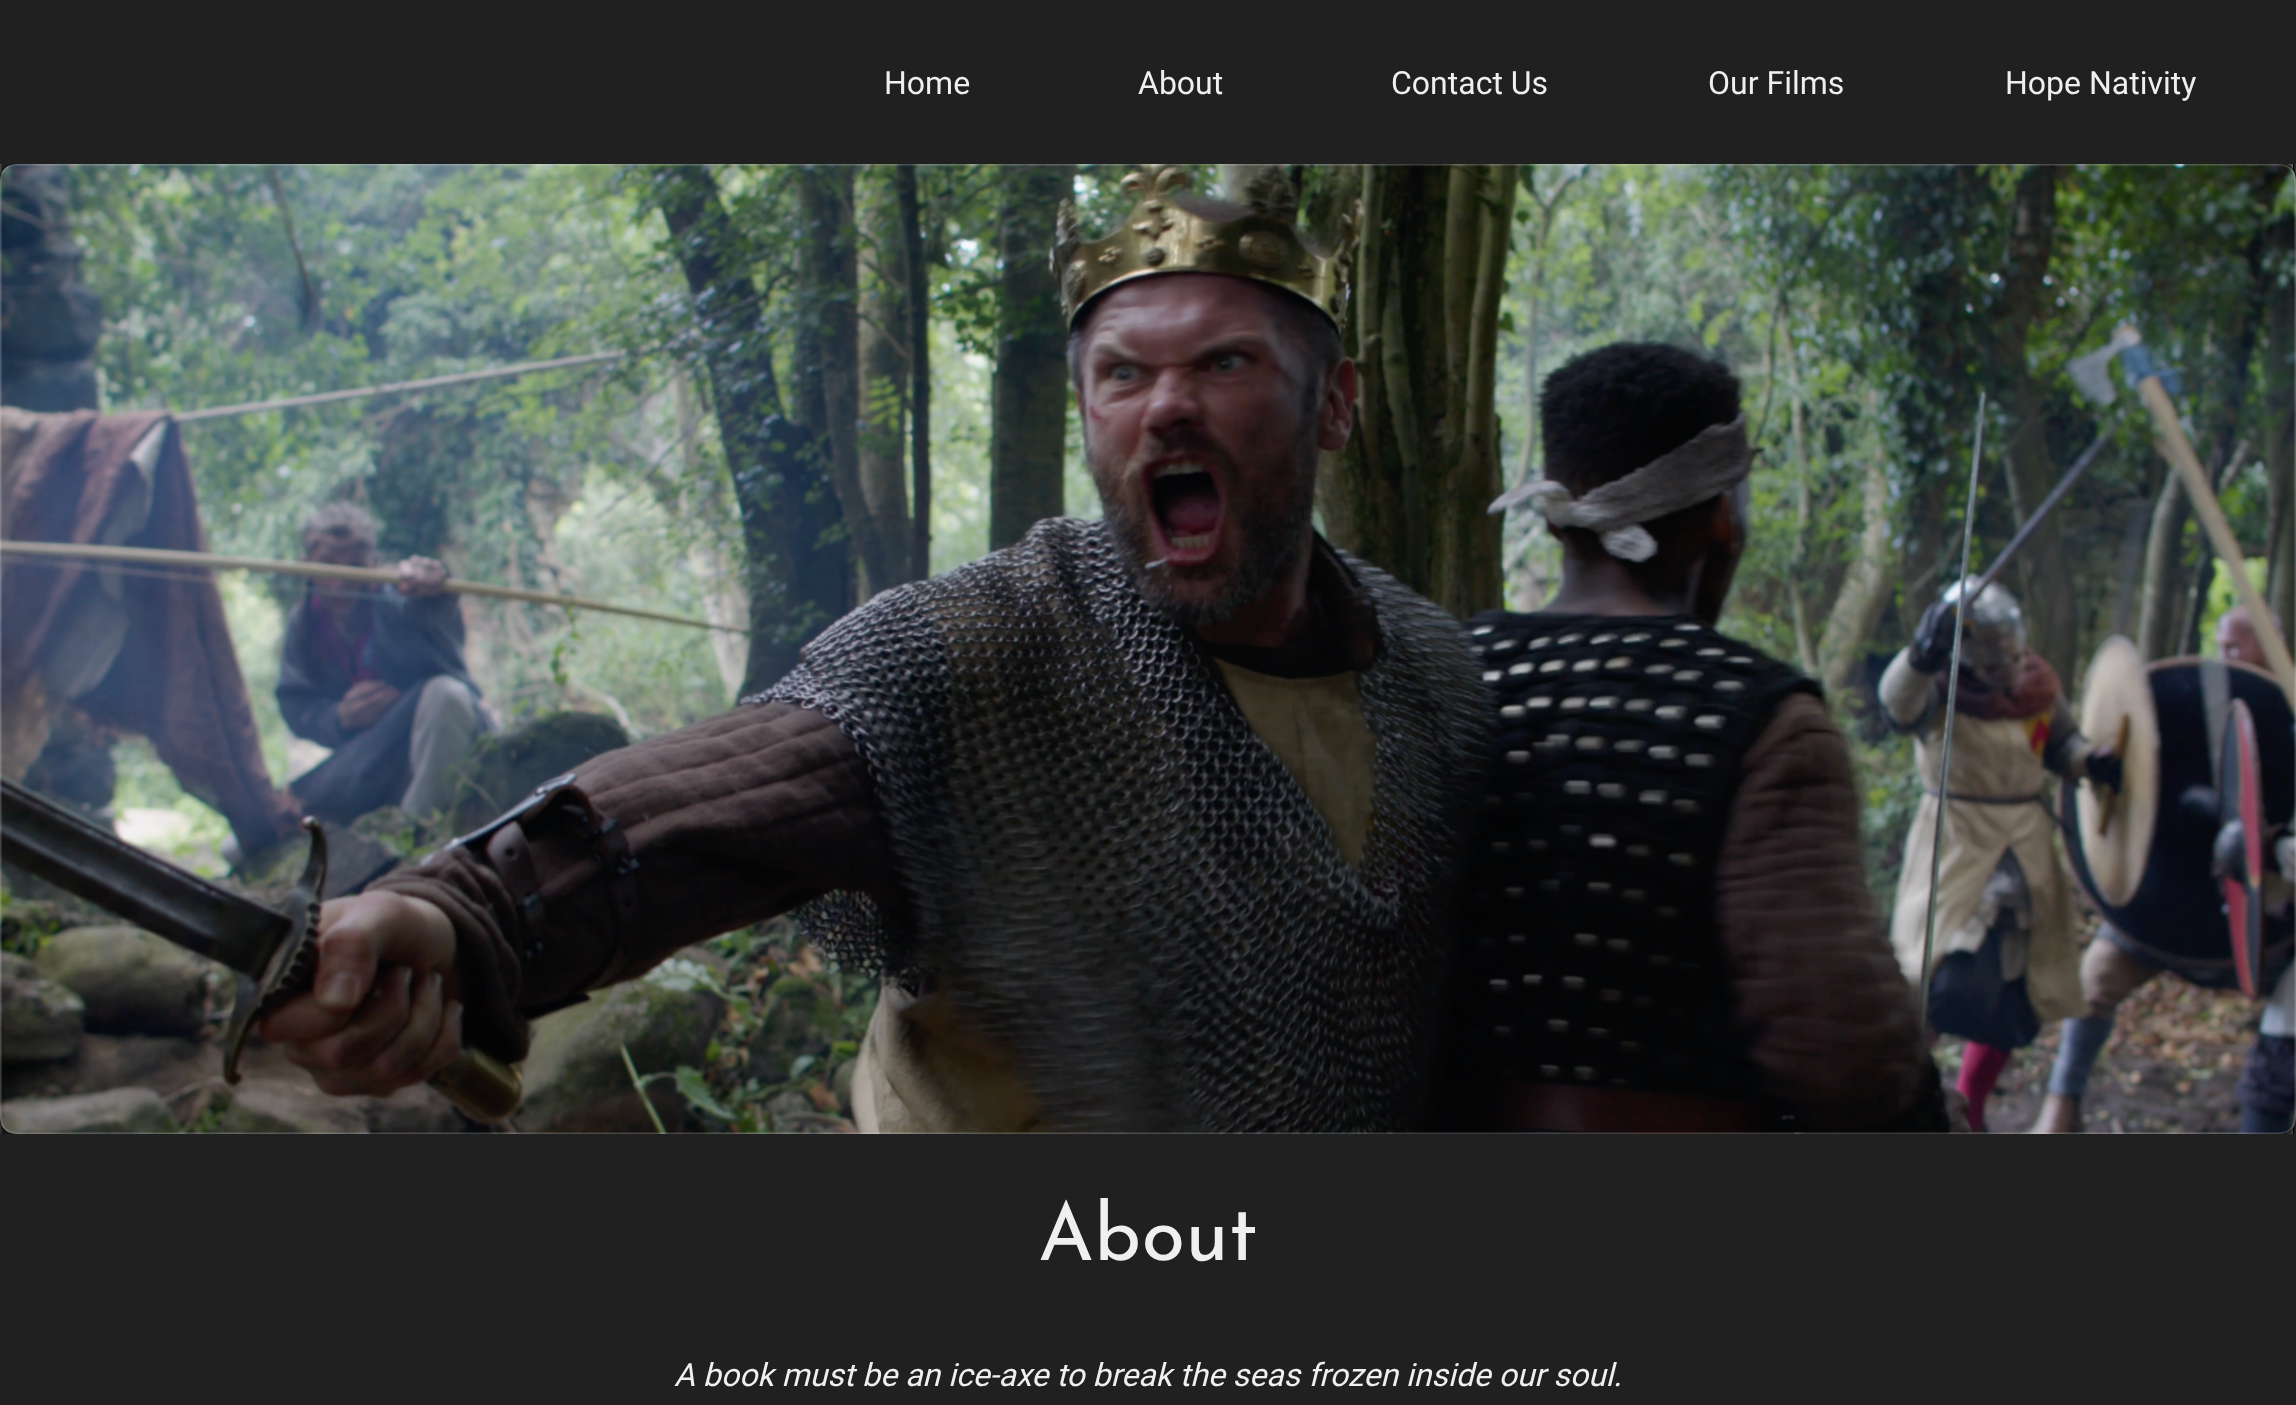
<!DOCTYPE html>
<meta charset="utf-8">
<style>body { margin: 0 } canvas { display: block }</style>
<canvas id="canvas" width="2296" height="1405"></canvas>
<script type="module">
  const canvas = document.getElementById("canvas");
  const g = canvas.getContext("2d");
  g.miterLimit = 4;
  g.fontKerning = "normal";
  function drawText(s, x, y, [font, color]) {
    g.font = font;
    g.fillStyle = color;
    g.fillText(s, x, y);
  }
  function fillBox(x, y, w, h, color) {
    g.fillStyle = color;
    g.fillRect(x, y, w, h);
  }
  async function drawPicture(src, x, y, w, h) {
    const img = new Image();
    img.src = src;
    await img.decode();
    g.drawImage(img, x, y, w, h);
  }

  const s1 = ["32px Roboto", "#EFEFEF"];
  const s2 = ["100 80px Josefin Sans", "#EFEFEF"];
  const s3 = ["italic 32px Roboto", "#EFEFEF"];

  fillBox(0, 0, 2296, 1405, "#202020");
  drawText("Home", 884, 94, s1);
  drawText("About", 1138, 94, s1);
  drawText("Contact Us", 1391, 94, s1);
  drawText("Our Films", 1708, 94, s1);
  drawText("Hope Nativity", 2005, 94, s1);
  await drawPicture("pic1.png", 0, 164, 2296, 970);
  drawText("About", 1038, 1260, s2);
  drawText("A book must be an ice-axe to break the seas frozen inside our soul.", 674, 1386, s3);
</script>
